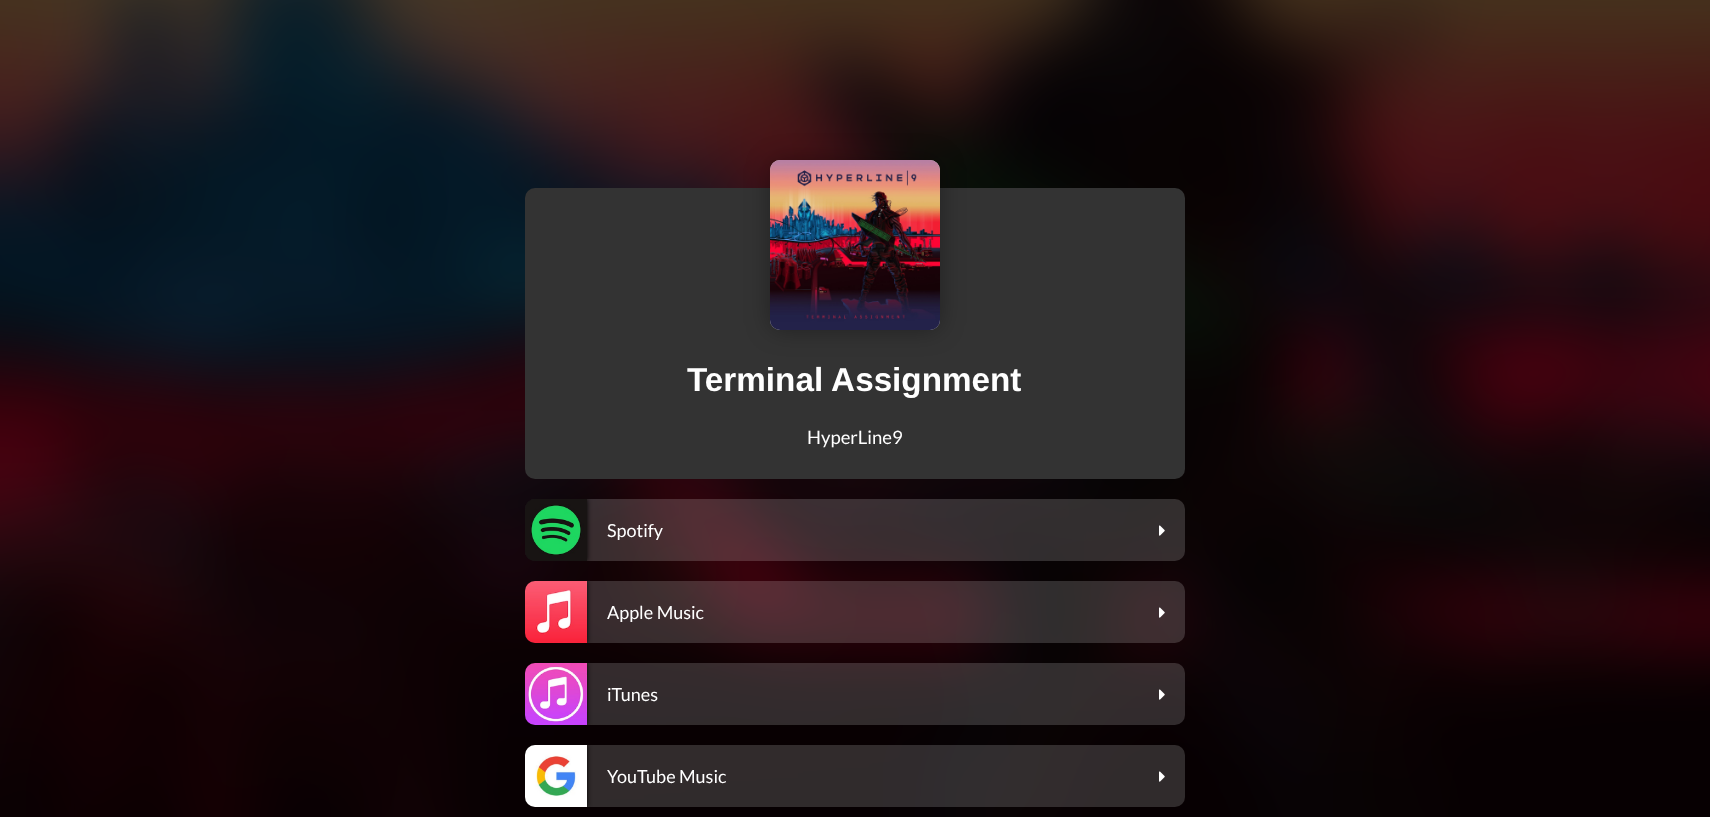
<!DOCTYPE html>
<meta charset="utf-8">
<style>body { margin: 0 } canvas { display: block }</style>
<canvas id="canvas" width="1710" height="817"></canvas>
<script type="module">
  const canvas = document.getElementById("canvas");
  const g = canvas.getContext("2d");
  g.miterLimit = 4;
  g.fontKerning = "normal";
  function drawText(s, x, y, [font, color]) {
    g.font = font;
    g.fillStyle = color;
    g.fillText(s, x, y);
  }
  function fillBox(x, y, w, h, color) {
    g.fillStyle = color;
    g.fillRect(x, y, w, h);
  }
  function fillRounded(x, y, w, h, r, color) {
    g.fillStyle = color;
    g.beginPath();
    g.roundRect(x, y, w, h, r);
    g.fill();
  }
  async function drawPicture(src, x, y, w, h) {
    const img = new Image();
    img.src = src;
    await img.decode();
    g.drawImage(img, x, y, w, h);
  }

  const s1 = ["bold 33.25px Liberation Sans", "#FFFFFF"];
  const s2 = ["18.5px Lato", "#FFFFFF"];
  const s3 = ["18px Lato", "#FFFFFF"];

  fillBox(0, 0, 1710, 817, "#000000");
  await drawPicture("pic1.png", 0, 0, 1710, 817);
  fillRounded(525, 188, 660, 291, 10, "#333333");
  g.fillStyle = "rgba(0, 0, 0, 0.35)";
  g.filter = "blur(12.5px)";
  g.beginPath();
  g.roundRect(770, 160, 170, 170, 10);
  g.fill();
  g.filter = "none";
  fillRounded(770, 160, 170, 170, 10, "#CCCCCC");
  await drawPicture("pic2.png", 770, 160, 170, 170);
  drawText("Terminal Assignment", 687, 391, s1);
  drawText("HyperLine9", 807, 444, s2);
  fillRounded(525, 499, 660, 62, 10, "rgba(255, 255, 255, 0.17)");
  g.save();
  g.beginPath();
  g.roundRect(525, 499, 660, 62, 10);
  g.clip();
  g.fillStyle = "#000000";
  g.filter = "blur(2.5px)";
  g.beginPath();
  g.rect(525, 499, 62, 62);
  g.fill();
  g.filter = "none";
  g.restore();
  await drawPicture("pic3.png", 525, 499, 62, 62);
  drawText("Spotify", 607, 537, s3);
  await drawPicture("pic4.png", 1159, 525, 6, 11);
  fillRounded(525, 581, 660, 62, 10, "rgba(255, 255, 255, 0.17)");
  g.save();
  g.beginPath();
  g.roundRect(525, 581, 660, 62, 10);
  g.clip();
  g.fillStyle = "#000000";
  g.filter = "blur(2.5px)";
  g.beginPath();
  g.rect(525, 581, 62, 62);
  g.fill();
  g.filter = "none";
  g.restore();
  await drawPicture("pic5.png", 525, 581, 62, 62);
  drawText("Apple Music", 607, 619, s3);
  await drawPicture("pic6.png", 1159, 607, 6, 11);
  fillRounded(525, 663, 660, 62, 10, "rgba(255, 255, 255, 0.17)");
  g.save();
  g.beginPath();
  g.roundRect(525, 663, 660, 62, 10);
  g.clip();
  g.fillStyle = "#000000";
  g.filter = "blur(2.5px)";
  g.beginPath();
  g.rect(525, 663, 62, 62);
  g.fill();
  g.filter = "none";
  g.restore();
  await drawPicture("pic7.png", 525, 663, 62, 62);
  drawText("iTunes", 607, 701, s3);
  await drawPicture("pic8.png", 1159, 689, 6, 11);
  fillRounded(525, 745, 660, 62, 10, "rgba(255, 255, 255, 0.17)");
  g.save();
  g.beginPath();
  g.roundRect(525, 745, 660, 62, 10);
  g.clip();
  g.fillStyle = "#000000";
  g.filter = "blur(2.5px)";
  g.beginPath();
  g.rect(525, 745, 62, 62);
  g.fill();
  g.filter = "none";
  g.restore();
  await drawPicture("pic9.png", 525, 745, 62, 62);
  drawText("YouTube Music", 607, 783, s3);
  await drawPicture("pic10.png", 1159, 771, 6, 11);
</script>
